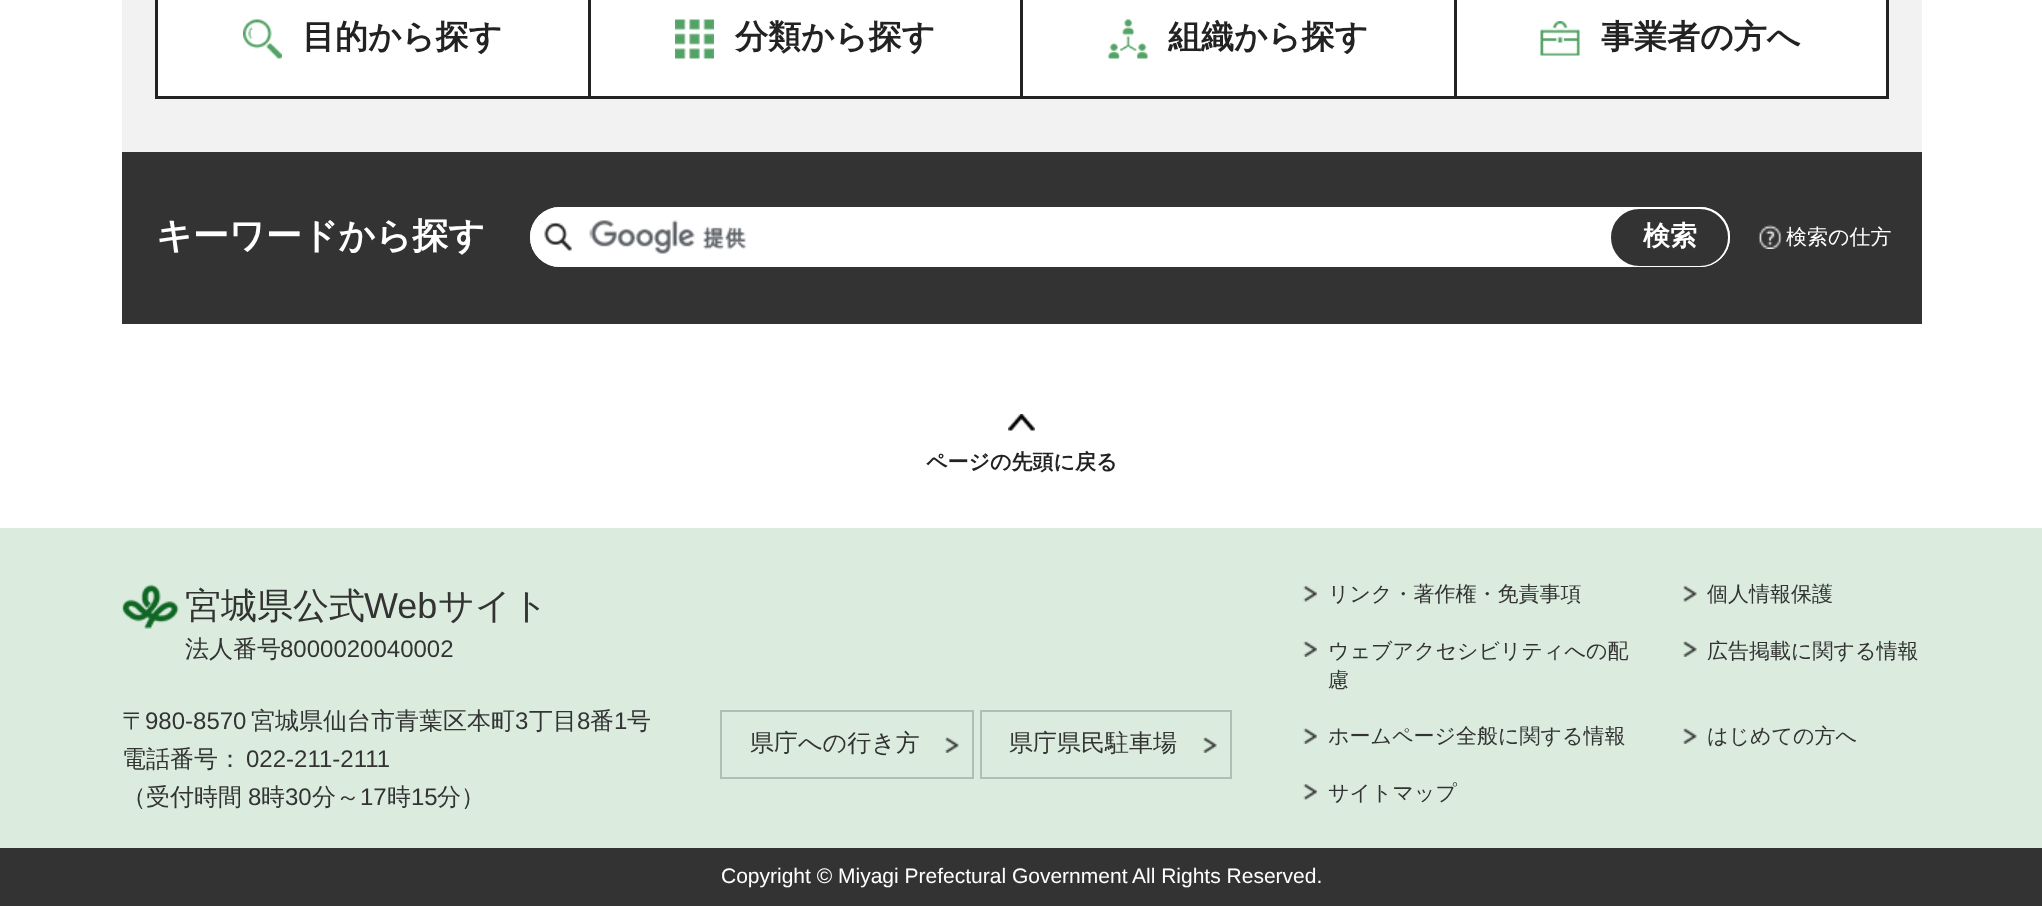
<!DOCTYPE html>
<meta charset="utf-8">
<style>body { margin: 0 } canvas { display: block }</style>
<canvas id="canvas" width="2042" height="906"></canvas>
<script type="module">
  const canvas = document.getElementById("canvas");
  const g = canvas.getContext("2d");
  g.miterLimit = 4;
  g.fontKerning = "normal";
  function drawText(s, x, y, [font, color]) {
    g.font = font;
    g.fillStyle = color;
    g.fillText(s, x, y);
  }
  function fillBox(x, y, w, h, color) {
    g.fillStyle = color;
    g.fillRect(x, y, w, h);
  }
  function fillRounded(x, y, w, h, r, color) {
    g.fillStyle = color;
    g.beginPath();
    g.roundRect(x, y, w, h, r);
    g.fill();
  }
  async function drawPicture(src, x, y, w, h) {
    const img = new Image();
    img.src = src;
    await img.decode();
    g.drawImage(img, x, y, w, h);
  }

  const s1 = ["bold 33px WenQuanYi Zen Hei", "#222222"];
  const s2 = ["bold 36px WenQuanYi Zen Hei", "#FFFFFF"];
  const s3 = ["bold 27px WenQuanYi Zen Hei", "#FFFFFF"];
  const s4 = ["500 21px WenQuanYi Zen Hei", "#FFFFFF"];
  const s5 = ["bold 21px WenQuanYi Zen Hei", "#222222"];
  const s6 = ["500 36px WenQuanYi Zen Hei", "#333333"];
  const s7 = ["36px Liberation Sans", "#333333"];
  const s8 = ["500 24px WenQuanYi Zen Hei", "#333333"];
  const s9 = ["24px Liberation Sans", "#333333"];
  const s10 = ["500 21px WenQuanYi Zen Hei", "#333333"];
  const s11 = ["21px Liberation Sans", "#FFFFFF"];

  fillBox(0, 0, 2042, 906, "#FFFFFF");
  fillBox(122, 0, 1800, 152, "#F2F2F2");
  fillBox(158, 0, 1728, 96, "#FFFFFF");
  fillBox(155, 0, 3, 99, "#222222");
  fillBox(588, 0, 3, 99, "#222222");
  fillBox(158, 96, 433, 3, "#222222");
  await drawPicture("pic1.png", 243, 19, 39, 40);
  drawText("目的から探す", 302, 48, s1);
  fillBox(1020, 0, 3, 99, "#222222");
  fillBox(591, 96, 432, 3, "#222222");
  await drawPicture("pic2.png", 675, 19, 39, 40);
  drawText("分類から探す", 735, 48, s1);
  fillBox(1454, 0, 3, 99, "#222222");
  fillBox(1023, 96, 434, 3, "#222222");
  await drawPicture("pic3.png", 1108, 19, 40, 40);
  drawText("組織から探す", 1168, 48, s1);
  fillBox(1886, 0, 3, 99, "#222222");
  fillBox(1457, 96, 432, 3, "#222222");
  await drawPicture("pic4.png", 1540, 21, 40, 35);
  drawText("事業者の方へ", 1601, 48, s1);
  fillBox(122, 152, 1800, 172, "#333333");
  drawText("キーワードから探す", 156, 248, s2);
  fillRounded(530, 207, 1200, 60, 30, "#FFFFFF");
  await drawPicture("pic5.png", 589, 220, 157, 34);
  g.beginPath();
  g.roundRect(531, 208, 1198, 58, 29);
  g.strokeStyle = "#FFFFFF";
  g.lineWidth = 2;
  g.stroke();
  await drawPicture("pic6.png", 544, 222, 28, 29);
  g.fillStyle = "#333333";
  g.beginPath();
  g.roundRect(1612, 210, 115, 55, 27.5);
  g.fill();
  g.strokeStyle = "#333333";
  g.stroke();
  drawText("検索", 1643, 245, s3);
  await drawPicture("pic7.png", 1758, 225, 24, 24);
  drawText("検索の仕方", 1786, 244, s4);
  await drawPicture("pic8.png", 1008, 414, 27, 17);
  drawText("ページの先頭に戻る", 926, 469, s5);
  fillBox(0, 528, 2042, 320, "#DBECDF");
  await drawPicture("pic9.png", 122, 584, 57, 45);
  drawText("宮城県公式", 185, 618, s6);
  drawText("Web", 364, 618, s7);
  drawText("サイト", 438, 618, s6);
  drawText("法人番号", 185, 657, s8);
  drawText("8000020040002", 280, 657, s9);
  drawText("〒", 122, 729, s8);
  drawText("980-8570", 145, 729, s9);
  drawText("宮城県仙台市青葉区本町", 251, 729, s8);
  drawText("3", 515, 729, s9);
  drawText("丁目", 529, 729, s8);
  drawText("8", 577, 729, s9);
  drawText("番", 590, 729, s8);
  drawText("1", 614, 729, s9);
  drawText("号", 627, 729, s8);
  drawText("電話番号：", 122, 767, s8);
  drawText("022-211-2111", 246, 767, s9);
  drawText("（受付時間", 122, 805, s8);
  drawText("8", 248, 805, s9);
  drawText("時", 261, 805, s8);
  drawText("30", 285, 805, s9);
  drawText("分～", 312, 805, s8);
  drawText("17", 360, 805, s9);
  drawText("時", 387, 805, s8);
  drawText("15", 411, 805, s9);
  drawText("分）", 437, 805, s8);
  g.strokeStyle = "#B1BEB4";
  g.strokeRect(721, 711, 252, 67);
  drawText("県庁への行き方", 750, 751, s8);
  await drawPicture("pic10.png", 945, 737, 14, 16);
  g.strokeRect(981, 711, 250, 67);
  drawText("県庁県民駐車場", 1009, 751, s8);
  await drawPicture("pic11.png", 1203, 737, 14, 16);
  await drawPicture("pic12.png", 1303, 585, 14, 17);
  drawText("リンク・著作権・免責事項", 1328, 601, s10);
  await drawPicture("pic13.png", 1683, 585, 14, 17);
  drawText("個人情報保護", 1707, 601, s10);
  await drawPicture("pic14.png", 1303, 641, 14, 16);
  drawText("ウェブアクセシビリティへの配", 1328, 658, s10);
  drawText("慮", 1328, 687, s10);
  await drawPicture("pic10.png", 1683, 641, 14, 16);
  drawText("広告掲載に関する情報", 1707, 658, s10);
  await drawPicture("pic14.png", 1303, 728, 14, 16);
  drawText("ホームページ全般に関する情報", 1328, 743, s10);
  await drawPicture("pic10.png", 1683, 728, 14, 16);
  drawText("はじめての方へ", 1707, 743, s10);
  await drawPicture("pic12.png", 1303, 783, 14, 17);
  drawText("サイトマップ", 1328, 800, s10);
  fillBox(0, 848, 2042, 58, "#333333");
  drawText("Copyright © Miyagi Prefectural Government", 721, 883, s11);
  drawText("All Rights Reserved.", 1132, 883, s11);
</script>
